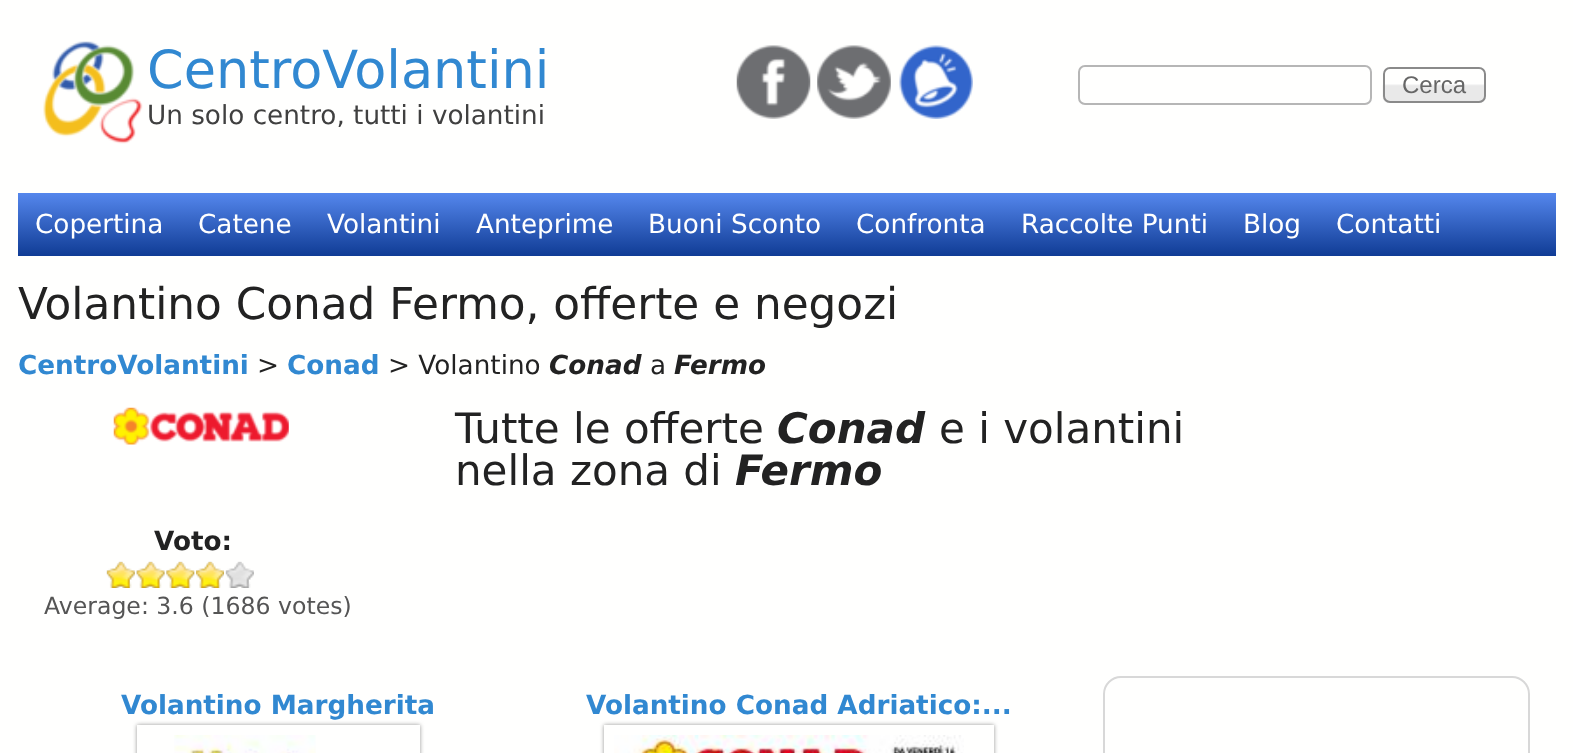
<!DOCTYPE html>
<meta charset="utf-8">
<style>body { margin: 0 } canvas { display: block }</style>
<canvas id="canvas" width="1573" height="753"></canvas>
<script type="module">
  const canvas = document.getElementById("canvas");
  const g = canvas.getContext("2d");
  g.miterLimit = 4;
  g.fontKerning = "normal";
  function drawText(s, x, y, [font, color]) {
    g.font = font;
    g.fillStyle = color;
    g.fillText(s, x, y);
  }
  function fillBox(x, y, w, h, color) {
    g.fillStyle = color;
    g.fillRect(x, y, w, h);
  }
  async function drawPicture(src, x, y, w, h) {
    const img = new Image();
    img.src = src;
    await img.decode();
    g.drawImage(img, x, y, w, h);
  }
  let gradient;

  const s1 = ["52.5px DejaVu Sans", "#3188D1"];
  const s2 = ["26.25px DejaVu Sans", "#404040"];
  const s3 = ["24px Liberation Sans", "#666666"];
  const s4 = ["26.25px DejaVu Sans", "#FFFFFF"];
  const s5 = ["43.75px DejaVu Sans", "#222222"];
  const s6 = ["bold 26.25px DejaVu Sans", "#3188D1"];
  const s7 = ["26.25px DejaVu Sans", "#222222"];
  const s8 = ["italic bold 26.25px DejaVu Sans", "#222222"];
  const s9 = ["42px DejaVu Sans", "#222222"];
  const s10 = ["italic bold 42px DejaVu Sans", "#222222"];
  const s11 = ["bold 26.25px DejaVu Sans", "#222222"];
  const s12 = ["23.6px DejaVu Sans", "#555555"];

  fillBox(0, 0, 1573, 753, "#FFFFFE");
  await drawPicture("pic1.png", 43, 41, 100, 103);
  drawText("CentroVolantini", 147, 88, s1);
  drawText("Un solo centro, tutti i volantini", 147, 124, s2);
  await drawPicture("pic2.png", 736, 45, 75, 74);
  await drawPicture("pic3.png", 817, 45, 74, 74);
  await drawPicture("pic4.png", 899, 45, 74, 74);
  g.beginPath();
  g.roundRect(1079, 66, 292, 38, 6);
  g.strokeStyle = "#B6B6B6";
  g.lineWidth = 2;
  g.stroke();
  await drawPicture("pic5.png", 1382, 84, 104, 19);
  g.beginPath();
  g.roundRect(1384, 68, 101, 34, 6);
  g.strokeStyle = "#8A8A8A";
  g.stroke();
  drawText("Cerca", 1402, 93, s3);
  gradient = g.createLinearGradient(787, 192, 787, 256);
  gradient.addColorStop(0, "#5688EE");
  gradient.addColorStop(1, "#103C95");
  g.fillStyle = gradient;
  g.fillRect(18, 193, 1538, 63);
  drawText("Copertina", 35, 233, s4);
  drawText("Catene", 198, 233, s4);
  drawText("Volantini", 327, 233, s4);
  drawText("Anteprime", 476, 233, s4);
  drawText("Buoni Sconto", 648, 233, s4);
  drawText("Confronta", 856, 233, s4);
  drawText("Raccolte Punti", 1021, 233, s4);
  drawText("Blog", 1243, 233, s4);
  drawText("Contatti", 1336, 233, s4);
  drawText("Volantino Conad Fermo, offerte e negozi", 18, 319, s5);
  drawText("CentroVolantini", 18, 374, s6);
  drawText(">", 257, 374, s7);
  drawText("Conad", 287, 374, s6);
  drawText("> Volantino", 388, 374, s7);
  drawText("Conad", 549, 374, s8);
  drawText("a", 650, 374, s7);
  drawText("Fermo", 674, 374, s8);
  await drawPicture("pic6.png", 113, 407, 176, 38);
  drawText("Tutte le offerte", 455, 443, s9);
  drawText("Conad", 777, 443, s10);
  drawText("e i volantini", 939, 443, s9);
  drawText("nella zona di", 455, 485, s9);
  drawText("Fermo", 735, 485, s10);
  drawText("Voto:", 154, 550, s11);
  await drawPicture("pic7.png", 106, 561, 29, 27);
  await drawPicture("pic8.png", 106, 561, 29, 27);
  await drawPicture("pic9.png", 136, 561, 29, 27);
  await drawPicture("pic10.png", 136, 561, 29, 27);
  await drawPicture("pic11.png", 166, 561, 29, 27);
  await drawPicture("pic12.png", 166, 561, 29, 27);
  await drawPicture("pic13.png", 196, 561, 28, 27);
  await drawPicture("pic14.png", 196, 561, 28, 27);
  await drawPicture("pic15.png", 225, 561, 29, 27);
  await drawPicture("pic16.png", 226, 562, 28, 26);
  drawText("Average: 3.6 (1686 votes)", 44, 614, s12);
  drawText("Volantino Margherita", 121, 714, s6);
  g.save();
  g.beginPath();
  g.moveTo(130, 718);
  g.lineTo(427, 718);
  g.lineTo(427, 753);
  g.lineTo(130, 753);
  g.closePath();
  g.moveTo(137, 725);
  g.lineTo(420, 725);
  g.lineTo(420, 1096);
  g.lineTo(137, 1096);
  g.closePath();
  g.clip("evenodd");
  g.fillStyle = "#969696";
  g.filter = "blur(2px)";
  g.beginPath();
  g.rect(137, 725, 283, 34);
  g.fill();
  g.filter = "none";
  g.restore();
  await drawPicture("pic17.png", 174, 735, 142, 18);
  drawText("Volantino Conad Adriatico:...", 586, 714, s6);
  g.save();
  g.beginPath();
  g.moveTo(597, 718);
  g.lineTo(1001, 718);
  g.lineTo(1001, 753);
  g.lineTo(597, 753);
  g.closePath();
  g.moveTo(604, 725);
  g.lineTo(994, 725);
  g.lineTo(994, 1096);
  g.lineTo(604, 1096);
  g.closePath();
  g.clip("evenodd");
  g.fillStyle = "#969696";
  g.filter = "blur(2px)";
  g.beginPath();
  g.rect(604, 725, 390, 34);
  g.fill();
  g.filter = "none";
  g.restore();
  await drawPicture("pic18.png", 614, 735, 350, 18);
  g.beginPath();
  g.roundRect(1104, 677, 425, 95, 17);
  g.strokeStyle = "#D8D8D8";
  g.stroke();
</script>
